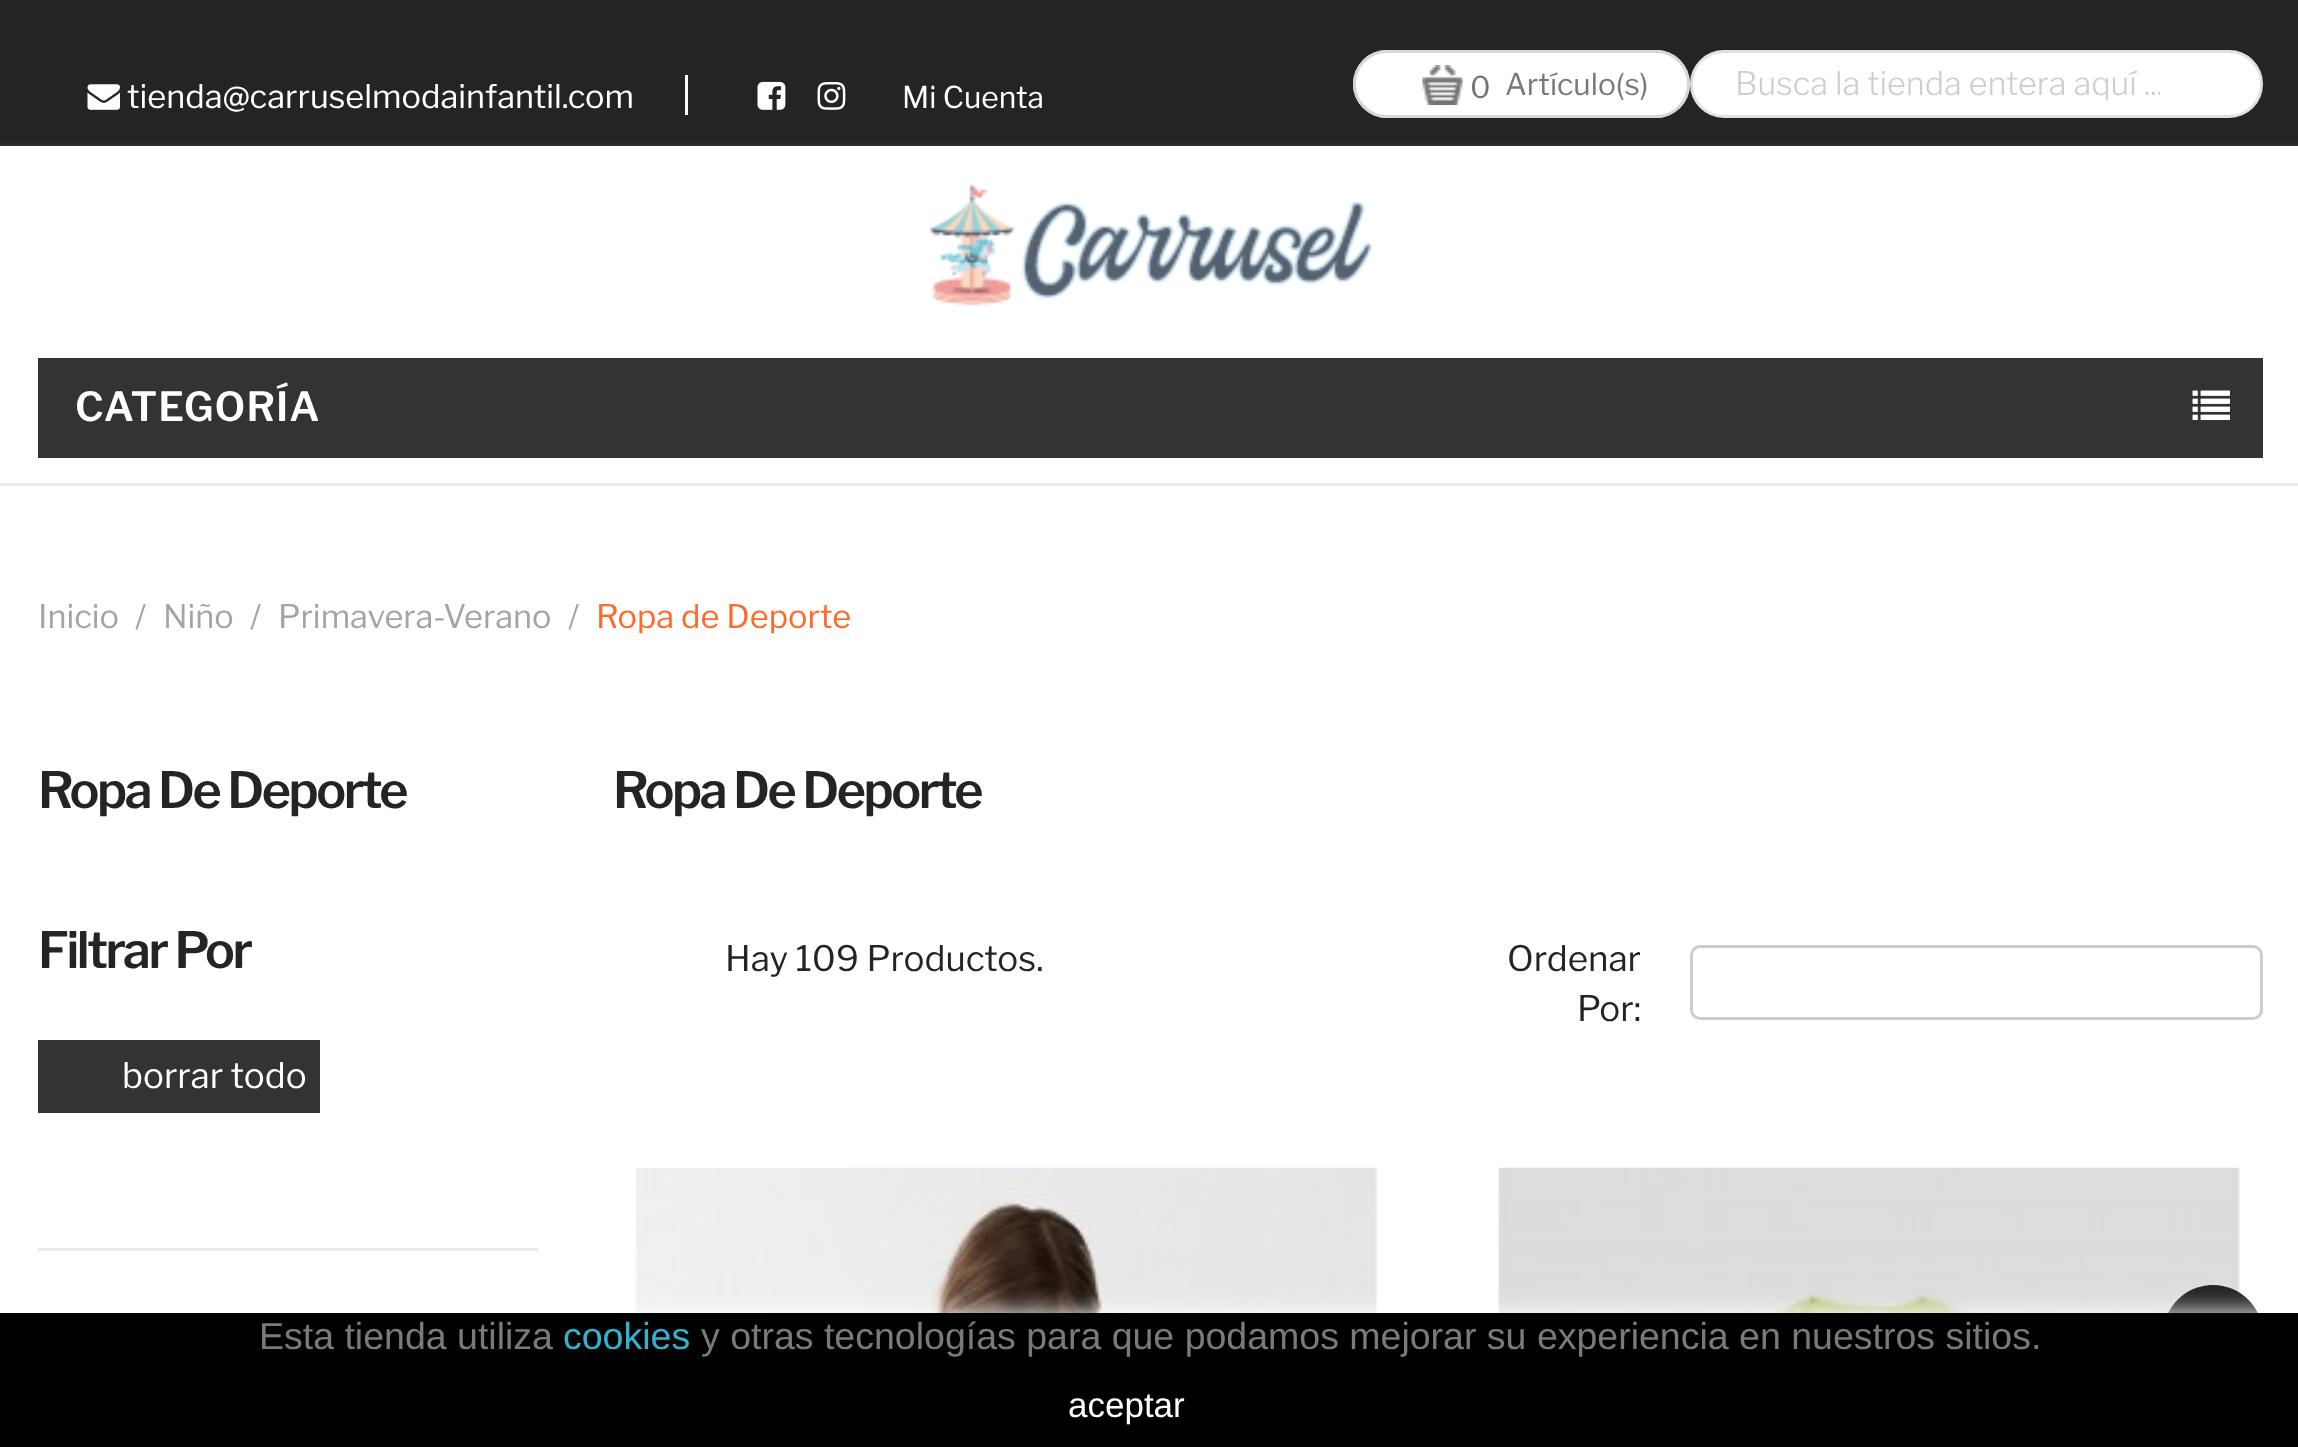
<!DOCTYPE html>
<meta charset="utf-8">
<style>body { margin: 0 } canvas { display: block }</style>
<canvas id="canvas" width="2298" height="1447"></canvas>
<script type="module">
  const canvas = document.getElementById("canvas");
  const g = canvas.getContext("2d");
  g.miterLimit = 4;
  g.fontKerning = "normal";
  function drawText(s, x, y, [font, color]) {
    g.font = font;
    g.fillStyle = color;
    g.fillText(s, x, y);
  }
  function fillBox(x, y, w, h, color) {
    g.fillStyle = color;
    g.fillRect(x, y, w, h);
  }
  function fillRounded(x, y, w, h, r, color) {
    g.fillStyle = color;
    g.beginPath();
    g.roundRect(x, y, w, h, r);
    g.fill();
  }
  async function drawPicture(src, x, y, w, h) {
    const img = new Image();
    img.src = src;
    await img.decode();
    g.drawImage(img, x, y, w, h);
  }

  const s1 = ["32.5px Libre Franklin", "#FFFFFF"];
  const s2 = ["30px Libre Franklin", "#FFFFFF"];
  const s3 = ["30px Libre Franklin", "#747474"];
  const s4 = ["30px Libre Franklin", "#7A7A7A"];
  const s5 = ["300 32.5px Libre Franklin", "#CECECE"];
  const s6 = ["600 40px Libre Franklin", "#FFFFFF"];
  const s7 = ["32.5px Libre Franklin", "#A4A4A4"];
  const s8 = ["32.5px Libre Franklin", "#FF6A28"];
  const s9 = ["600 50px Libre Franklin", "#242424"];
  const s10 = ["35px Libre Franklin", "#FFFFFF"];
  const s11 = ["35px Libre Franklin", "#242424"];
  const s12 = ["37.5px Liberation Sans", "#7A7A7A"];
  const s13 = ["37.5px Liberation Sans", "#2FB5D2"];
  const s14 = ["35px Liberation Sans", "#FFFFFF"];

  fillBox(0, 0, 2298, 1447, "#FFFFFF");
  fillBox(0, 0, 2298, 143, "#242424");
  fillBox(0, 143, 2298, 3, "#2B2B2E");
  fillBox(685, 75, 3, 40, "#FFFFFF");
  await drawPicture("pic1.png", 87, 84, 33, 26);
  drawText("tienda@carruselmodainfantil.com", 127, 108, s1);
  await drawPicture("pic2.png", 757, 81, 29, 29);
  await drawPicture("pic3.png", 817, 82, 29, 28);
  drawText("Mi Cuenta", 902, 108, s2);
  fillRounded(1353, 50, 337, 68, 34, "#FFFFFF");
  await drawPicture("pic4.png", 1422, 65, 41, 40);
  g.beginPath();
  g.roundRect(1354.5, 51.5, 334, 65, 32.5);
  g.strokeStyle = "#D7D7D7";
  g.lineWidth = 3;
  g.stroke();
  drawText("0", 1470, 98, s3);
  drawText("Artículo(s)", 1505, 95, s4);
  g.fillStyle = "#FFFFFF";
  g.beginPath();
  g.roundRect(1691.5, 51.5, 570, 65, 32.5);
  g.fill();
  g.strokeStyle = "#E1E1E1";
  g.stroke();
  g.save();
  g.beginPath();
  g.rect(1735, 63, 425, 40);
  g.clip();
  drawText("Busca la tienda entera aquí ...", 1735, 95, s5);
  g.restore();
  await drawPicture("pic5.png", 929, 184, 444, 122);
  fillBox(38, 358, 2225, 100, "#333333");
  g.letterSpacing = "1px";
  drawText("CATEGORÍA", 75, 421, s6);
  await drawPicture("pic6.png", 2192, 390, 38, 30);
  fillBox(0, 483, 2298, 3, "#EBEBEB");
  g.letterSpacing = "0px";
  drawText("Inicio", 38, 628, s7);
  drawText("/", 135, 628, s7);
  drawText("Niño", 163, 628, s7);
  drawText("/", 250, 628, s7);
  drawText("Primavera-Verano", 278, 628, s7);
  drawText("/", 568, 628, s7);
  drawText("Ropa de Deporte", 596, 628, s8);
  g.letterSpacing = "-2.5px";
  drawText("Ropa De Deporte", 38, 808, s9);
  drawText("Filtrar Por", 38, 968, s9);
  fillBox(38, 1040, 282, 73, "#333333");
  g.letterSpacing = "0px";
  drawText("borrar todo", 122, 1088, s10);
  fillBox(38, 1248, 500, 3, "#EBEBEB");
  g.letterSpacing = "-2.5px";
  drawText("Ropa De Deporte", 613, 808, s9);
  g.letterSpacing = "0px";
  drawText("Hay 109 Productos.", 725, 971, s11);
  drawText("Ordenar", 1507, 971, s11);
  drawText("Por:", 1577, 1021, s11);
  g.beginPath();
  g.roundRect(1691.5, 946.5, 570, 72, 8.5);
  g.strokeStyle = "#CCCCCC";
  g.stroke();
  await drawPicture("pic7.png", 635, 1167, 743, 146);
  await drawPicture("pic8.png", 1498, 1167, 742, 146);
  g.beginPath();
  g.arc(2213, 1335, 50, 0, Math.PI * 2);
  g.fill();
  g.fillStyle = "#FFFFFF";
  g.filter = "blur(12.5px)";
  g.beginPath();
  g.rect(0, 1313, 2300, 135);
  g.fill();
  g.filter = "none";
  fillBox(0, 1313, 2298, 134, "#000000");
  drawText("Esta tienda utiliza", 259, 1349, s12);
  drawText("cookies", 563, 1349, s13);
  drawText("y otras tecnologías para que podamos mejorar su experiencia en nuestros sitios.", 701, 1349, s12);
  drawText("aceptar", 1068, 1417, s14);
</script>
